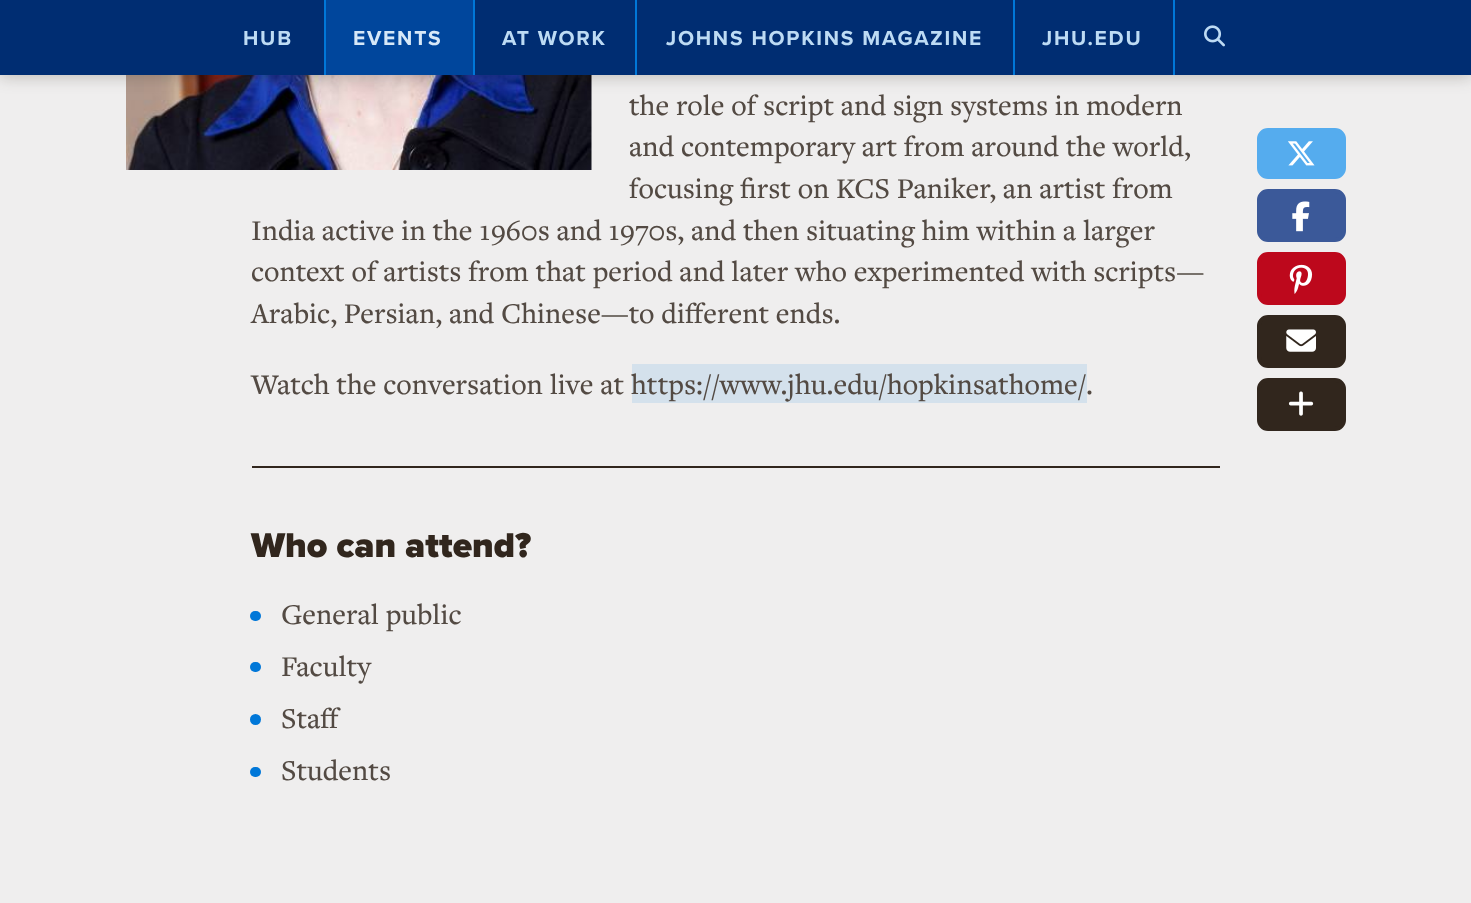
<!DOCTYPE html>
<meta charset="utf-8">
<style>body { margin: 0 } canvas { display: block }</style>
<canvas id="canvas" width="1471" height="903"></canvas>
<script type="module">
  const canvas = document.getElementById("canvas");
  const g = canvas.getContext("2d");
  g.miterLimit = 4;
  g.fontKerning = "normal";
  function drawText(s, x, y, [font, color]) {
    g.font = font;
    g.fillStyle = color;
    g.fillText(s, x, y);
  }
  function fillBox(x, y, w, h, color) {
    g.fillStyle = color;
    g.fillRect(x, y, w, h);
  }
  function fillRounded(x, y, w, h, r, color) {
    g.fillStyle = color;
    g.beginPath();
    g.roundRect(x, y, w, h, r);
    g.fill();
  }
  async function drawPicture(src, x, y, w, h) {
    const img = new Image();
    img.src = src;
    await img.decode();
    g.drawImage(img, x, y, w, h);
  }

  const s1 = ["bold 21px Proxima Nova", "#BDDBF4"];
  const s2 = ["bold 21px Proxima Nova", "#D6E8F8"];
  const s3 = ["500 29.75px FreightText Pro", "#534A43"];
  const s4 = ["900 35.75px Proxima Nova", "#31261D"];

  fillBox(0, 0, 1471, 903, "#EFEEEE");
  await drawPicture("pic2.png", 126, 75, 466, 95);
  g.fillStyle = "rgba(49, 38, 29, 0.25)";
  g.filter = "blur(8px)";
  g.beginPath();
  g.rect(0, 2, 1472, 75);
  g.fill();
  g.filter = "none";
  fillBox(0, 0, 1471, 75, "#002D72");
  g.letterSpacing = "1.75px";
  drawText("HUB", 243, 45, s1);
  fillBox(326, 0, 147, 75, "#00469C");
  fillBox(324, 0, 2, 75, "#0077D8");
  drawText("EVENTS", 353, 45, s2);
  fillBox(473, 0, 2, 75, "#0077D8");
  drawText("AT WORK", 502, 45, s1);
  fillBox(635, 0, 2, 75, "#0077D8");
  drawText("JOHNS HOPKINS MAGAZINE", 666, 45, s1);
  fillBox(1013, 0, 2, 75, "#0077D8");
  drawText("JHU.EDU", 1042, 45, s1);
  fillBox(1173, 0, 2, 75, "#0077D8");
  await drawPicture("pic1.png", 1204, 25, 21, 22);
  g.letterSpacing = "0px";
  drawText("the role of script and sign systems in modern", 629, 115, s3);
  drawText("and contemporary art from around the world,", 629, 156, s3);
  drawText("focusing first on KCS Paniker, an artist from", 629, 198, s3);
  drawText("India active in the 1960s and 1970s, and then situating him within a larger", 251, 240, s3);
  drawText("context of artists from that period and later who experimented with scripts—", 251, 281, s3);
  drawText("Arabic, Persian, and Chinese—to different ends.", 251, 323, s3);
  drawText("Watch the conversation live at", 251, 394, s3);
  fillBox(632, 364, 455, 39, "#D4E1EC");
  drawText("https://www.jhu.edu/hopkinsathome/.", 631, 394, s3);
  fillBox(252, 466, 968, 2, "#31261D");
  drawText("Who can attend?", 251, 557, s4);
  fillRounded(250, 611, 11, 10, 5, "#0077D8");
  drawText("General public", 281, 624, s3);
  fillRounded(250, 662, 11, 10, 5, "#0077D8");
  drawText("Faculty", 281, 676, s3);
  g.fillStyle = "#0077D8";
  g.beginPath();
  g.arc(255.5, 719.5, 5.5, 0, Math.PI * 2);
  g.fill();
  drawText("Staff", 281, 728, s3);
  fillRounded(250, 767, 11, 10, 5, "#0077D8");
  drawText("Students", 281, 780, s3);
  g.fillStyle = "#55ACEE";
  g.beginPath();
  g.roundRect(1259, 130, 85, 47, 9);
  g.fill();
  g.strokeStyle = "#55ACEE";
  g.lineWidth = 4;
  g.stroke();
  await drawPicture("pic3.png", 1288, 141, 27, 25);
  g.fillStyle = "#3B5999";
  g.beginPath();
  g.roundRect(1259, 191, 85, 49, 9);
  g.fill();
  g.strokeStyle = "#3B5999";
  g.stroke();
  await drawPicture("pic4.png", 1292, 201, 18, 31);
  g.fillStyle = "#BD081C";
  g.beginPath();
  g.roundRect(1259, 254, 85, 49, 9);
  g.fill();
  g.strokeStyle = "#BD081C";
  g.stroke();
  await drawPicture("pic5.png", 1289, 264, 24, 30);
  g.fillStyle = "#31261D";
  g.beginPath();
  g.roundRect(1259, 317, 85, 49, 9);
  g.fill();
  g.strokeStyle = "#31261D";
  g.stroke();
  await drawPicture("pic6.png", 1286, 329, 30, 23);
  g.beginPath();
  g.roundRect(1259, 380, 85, 49, 9);
  g.fill();
  g.stroke();
  await drawPicture("pic7.png", 1288, 391, 26, 25);
</script>
